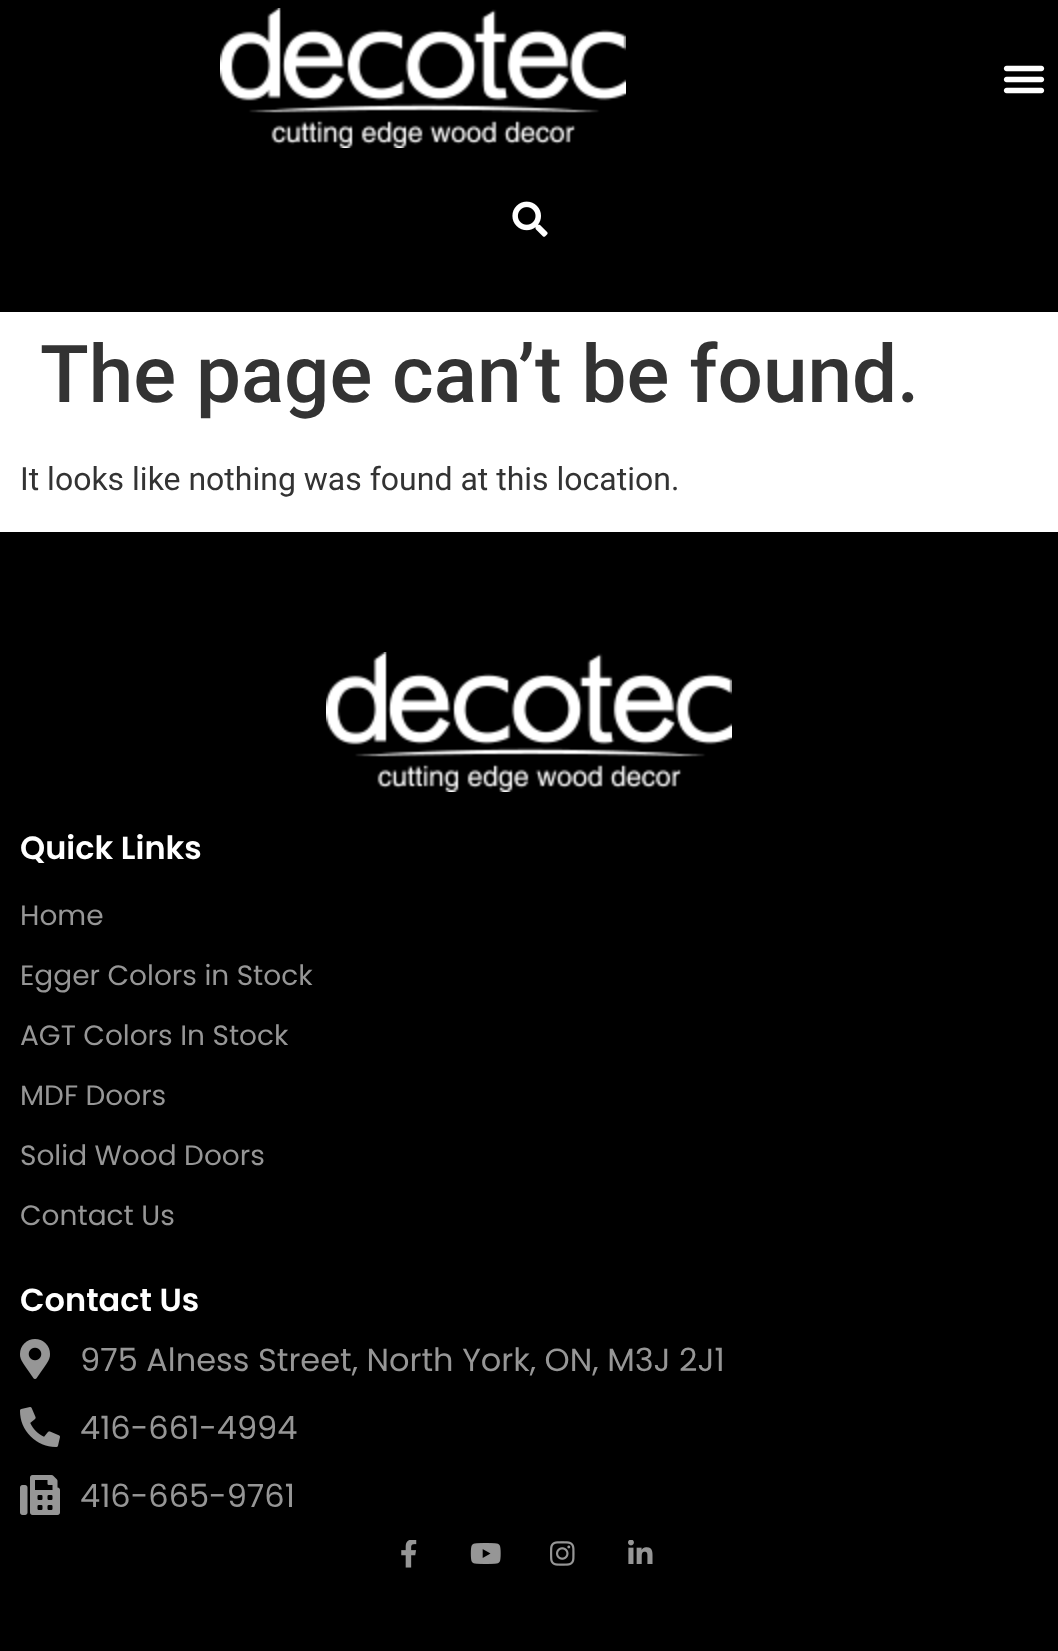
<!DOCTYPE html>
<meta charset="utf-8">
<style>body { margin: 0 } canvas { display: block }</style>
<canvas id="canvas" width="1058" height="1651"></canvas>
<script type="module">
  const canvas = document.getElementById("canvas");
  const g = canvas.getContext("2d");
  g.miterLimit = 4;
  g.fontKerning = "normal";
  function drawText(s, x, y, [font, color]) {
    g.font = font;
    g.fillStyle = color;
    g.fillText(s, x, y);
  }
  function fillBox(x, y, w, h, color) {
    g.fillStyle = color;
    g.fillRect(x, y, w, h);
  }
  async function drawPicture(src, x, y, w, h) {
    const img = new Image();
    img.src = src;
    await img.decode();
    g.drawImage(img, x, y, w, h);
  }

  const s1 = ["500 80px Roboto", "#333333"];
  const s2 = ["32px Roboto", "#333333"];
  const s3 = ["600 32px Poppins", "#FFFFFF"];
  const s4 = ["28px Poppins", "#969696"];
  const s5 = ["32px Poppins", "#969696"];

  fillBox(0, 0, 1058, 1651, "#FFFFFF");
  fillBox(0, 0, 1058, 312, "#000000");
  await drawPicture("pic1.png", 220, 8, 406, 140);
  await drawPicture("pic2.png", 1003, 65, 42, 29);
  await drawPicture("pic3.png", 512, 201, 36, 36);
  drawText("The page can’t be found.", 40, 402, s1);
  drawText("It looks like nothing was found at this location.", 20, 490, s2);
  fillBox(0, 532, 1058, 1119, "#000000");
  await drawPicture("pic1.png", 326, 652, 406, 140);
  drawText("Quick Links", 20, 859, s3);
  drawText("Home", 20, 925, s4);
  drawText("Egger Colors in Stock", 20, 985, s4);
  drawText("AGT Colors In Stock", 20, 1045, s4);
  drawText("MDF Doors", 20, 1105, s4);
  drawText("Solid Wood Doors", 20, 1165, s4);
  drawText("Contact Us", 20, 1225, s4);
  drawText("Contact Us", 20, 1311, s3);
  await drawPicture("pic4.png", 20, 1339, 30, 40);
  drawText("975 Alness Street, North York, ON, M3J 2J1", 80, 1371, s5);
  await drawPicture("pic5.png", 20, 1407, 40, 40);
  drawText("416-661-4994", 80, 1439, s5);
  await drawPicture("pic6.png", 20, 1475, 40, 40);
  drawText("416-665-9761", 80, 1507, s5);
  await drawPicture("pic7.png", 401, 1540, 16, 28);
  await drawPicture("pic8.png", 470, 1543, 31, 21);
  await drawPicture("pic9.png", 550, 1541, 25, 25);
  await drawPicture("pic10.png", 628, 1540, 25, 24);
</script>
